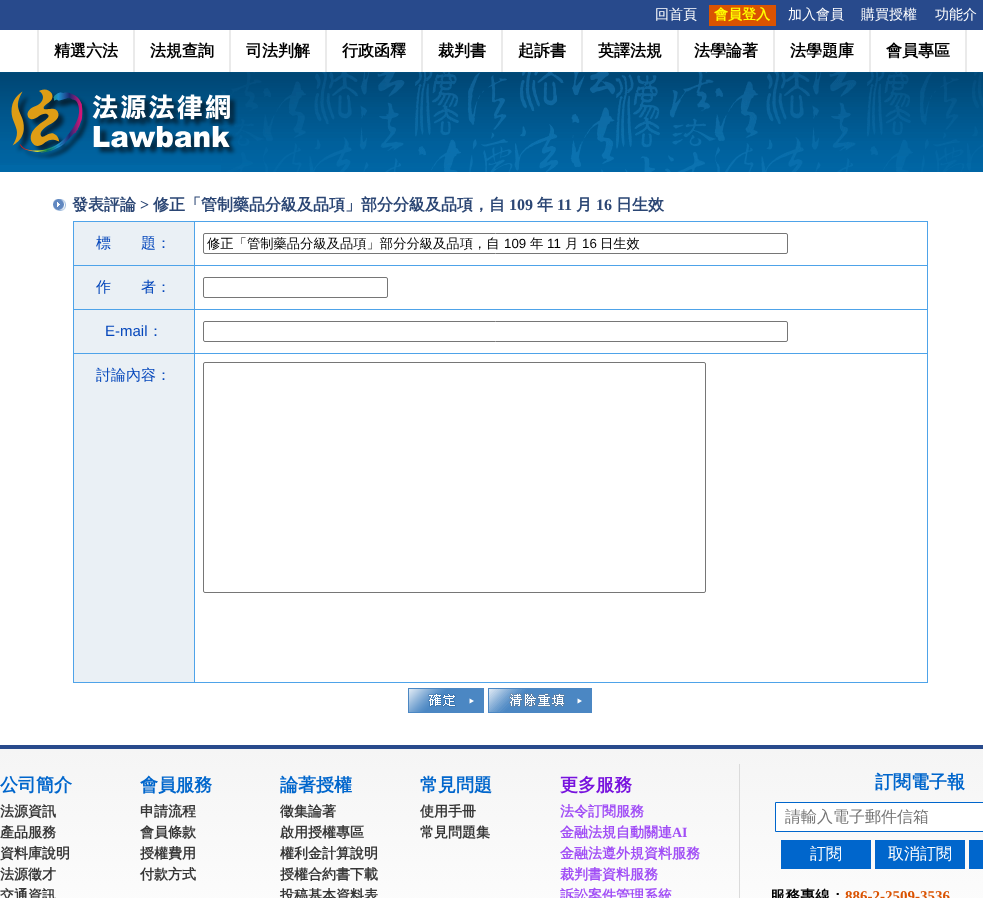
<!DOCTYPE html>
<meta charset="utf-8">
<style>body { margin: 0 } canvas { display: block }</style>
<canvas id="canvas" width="983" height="898"></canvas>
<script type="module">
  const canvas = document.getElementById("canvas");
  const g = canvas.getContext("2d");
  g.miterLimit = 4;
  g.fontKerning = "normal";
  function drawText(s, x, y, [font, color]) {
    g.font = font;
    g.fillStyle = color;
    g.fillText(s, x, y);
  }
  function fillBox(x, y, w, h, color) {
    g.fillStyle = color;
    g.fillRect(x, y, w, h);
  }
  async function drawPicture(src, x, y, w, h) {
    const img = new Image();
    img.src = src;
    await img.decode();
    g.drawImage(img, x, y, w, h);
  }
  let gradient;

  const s1 = ["500 14px WenQuanYi Zen Hei", "#FFFFFF"];
  const s2 = ["bold 14px WenQuanYi Zen Hei", "#FFFF00"];
  const s3 = ["bold 16px WenQuanYi Zen Hei", "#000000"];
  const s4 = ["bold 16px WenQuanYi Zen Hei", "#2B4674"];
  const s5 = ["bold 16px Liberation Serif", "#2B4674"];
  const s6 = ["500 15px WenQuanYi Zen Hei", "#0446BB"];
  const s7 = ["500 13.3px WenQuanYi Zen Hei", "#000000"];
  const s8 = ["13.3px Liberation Sans", "#000000"];
  const s9 = ["15px Liberation Sans", "#0446BB"];
  const s10 = ["bold 18px WenQuanYi Zen Hei", "#0066CC"];
  const s11 = ["bold 14px WenQuanYi Zen Hei", "#363636"];
  const s12 = ["bold 18px WenQuanYi Zen Hei", "#7712DE"];
  const s13 = ["bold 14px WenQuanYi Zen Hei", "#A14EF6"];
  const s14 = ["bold 14px Liberation Serif", "#A14EF6"];
  const s15 = ["500 16px WenQuanYi Zen Hei", "#757575"];
  const s16 = ["500 16px WenQuanYi Zen Hei", "#FFFFFF"];
  const s17 = ["bold 15px WenQuanYi Zen Hei", "#000000"];
  const s18 = ["bold 15px Liberation Serif", "#DA5302"];

  fillBox(0, 0, 983, 898, "#FFFFFF");
  fillBox(0, 0, 983, 30, "#284A8C");
  drawText("回首頁", 655, 19, s1);
  fillBox(709, 5, 67, 21, "#DA5302");
  drawText("會員登入", 714, 19, s2);
  drawText("加入會員", 788, 19, s1);
  drawText("購買授權", 861, 19, s1);
  drawText("功能介", 935, 19, s1);
  fillBox(37, 30, 2, 42, "#EAEAEA");
  drawText("精選六法", 54, 56, s3);
  fillBox(133, 30, 2, 42, "#EAEAEA");
  drawText("法規查詢", 150, 56, s3);
  fillBox(229, 30, 2, 42, "#EAEAEA");
  drawText("司法判解", 246, 56, s3);
  fillBox(325, 30, 2, 42, "#EAEAEA");
  drawText("行政函釋", 342, 56, s3);
  fillBox(421, 30, 2, 42, "#EAEAEA");
  drawText("裁判書", 438, 56, s3);
  fillBox(501, 30, 2, 42, "#EAEAEA");
  drawText("起訴書", 518, 56, s3);
  fillBox(581, 30, 2, 42, "#EAEAEA");
  drawText("英譯法規", 598, 56, s3);
  fillBox(677, 30, 2, 42, "#EAEAEA");
  drawText("法學論著", 694, 56, s3);
  fillBox(773, 30, 2, 42, "#EAEAEA");
  drawText("法學題庫", 790, 56, s3);
  fillBox(869, 30, 2, 42, "#EAEAEA");
  drawText("會員專區", 886, 56, s3);
  fillBox(965, 30, 2, 42, "#EAEAEA");
  fillBox(0, 165, 221, 7, "#0068A7");
  await drawPicture("pic1.png", 0, 72, 221, 93);
  await drawPicture("pic2.png", 221, 72, 762, 100);
  await drawPicture("pic3.png", 11, 89, 227, 71);
  await drawPicture("pic4.png", 53, 199, 13, 12);
  drawText("發表評論", 72, 210, s4);
  drawText(">", 140, 210, s5);
  drawText("修正「管制藥品分級及品項」部分分級及品項，自", 153, 210, s4);
  drawText("109", 509, 210, s5);
  drawText("年", 537, 210, s4);
  drawText("11", 557, 210, s5);
  drawText("月", 576, 210, s4);
  drawText("16", 596, 210, s5);
  drawText("日生效", 616, 210, s4);
  fillBox(73, 221, 855, 1, "#4EA3E9");
  fillBox(927, 221, 1, 462, "#4EA3E9");
  fillBox(73, 682, 855, 1, "#4EA3E9");
  fillBox(73, 221, 1, 462, "#4EA3E9");
  fillBox(74, 222, 120, 43, "#EAF0F5");
  drawText("標　　題：", 96, 248, s6);
  fillBox(194, 265, 734, 1, "#4EA3E9");
  fillBox(194, 309, 734, 1, "#4EA3E9");
  fillBox(194, 353, 734, 1, "#4EA3E9");
  fillBox(194, 353, 1, 330, "#4EA3E9");
  fillBox(73, 353, 122, 1, "#4EA3E9");
  fillBox(194, 309, 1, 45, "#4EA3E9");
  fillBox(73, 309, 122, 1, "#4EA3E9");
  fillBox(194, 265, 1, 45, "#4EA3E9");
  fillBox(73, 265, 122, 1, "#4EA3E9");
  fillBox(194, 221, 1, 45, "#4EA3E9");
  g.beginPath();
  g.roundRect(203.5, 233.5, 584, 20, 1.5);
  g.strokeStyle = "#767676";
  g.stroke();
  drawText("修正「管制藥品分級及品項」部分分級及品項，自", 207, 248, s7);
  drawText("109", 504, 248, s8);
  drawText("年", 530, 248, s7);
  drawText("11", 547, 248, s8);
  drawText("月", 565, 248, s7);
  drawText("16", 582, 248, s8);
  drawText("日生效", 600, 248, s7);
  fillBox(74, 266, 120, 43, "#EAF0F5");
  drawText("作　　者：", 96, 292, s6);
  g.beginPath();
  g.roundRect(203.5, 277.5, 184, 20, 1.5);
  g.stroke();
  fillBox(74, 310, 120, 43, "#EAF0F5");
  drawText("E-mail", 105, 336, s9);
  drawText("：", 148, 336, s6);
  g.beginPath();
  g.roundRect(203.5, 321.5, 584, 20, 1.5);
  g.stroke();
  fillBox(74, 354, 120, 328, "#EAF0F5");
  drawText("討論內容：", 96, 380, s6);
  g.beginPath();
  g.roundRect(203.5, 362.5, 502, 230, 1.5);
  g.stroke();
  await drawPicture("pic5.png", 408, 688, 76, 25);
  await drawPicture("pic6.png", 488, 688, 104, 25);
  gradient = g.createLinearGradient(492, 749, 492, 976);
  gradient.addColorStop(0, "#F5F5F5");
  gradient.addColorStop(1, "#FFFFFF");
  g.fillStyle = gradient;
  g.fillRect(0, 749, 983, 149);
  fillBox(0, 745, 983, 4, "#284A8C");
  fillBox(739, 764, 1, 134, "#DBDBDB");
  drawText("公司簡介", 0, 791, s10);
  drawText("法源資訊", 0, 816, s11);
  drawText("產品服務", 0, 837, s11);
  drawText("資料庫說明", 0, 858, s11);
  drawText("法源徵才", 0, 879, s11);
  drawText("交通資訊", 0, 900, s11);
  drawText("會員服務", 140, 791, s10);
  drawText("申請流程", 140, 816, s11);
  drawText("會員條款", 140, 837, s11);
  drawText("授權費用", 140, 858, s11);
  drawText("付款方式", 140, 879, s11);
  drawText("論著授權", 280, 791, s10);
  drawText("徵集論著", 280, 816, s11);
  drawText("啟用授權專區", 280, 837, s11);
  drawText("權利金計算說明", 280, 858, s11);
  drawText("授權合約書下載", 280, 879, s11);
  drawText("投稿基本資料表", 280, 900, s11);
  drawText("常見問題", 420, 791, s10);
  drawText("使用手冊", 420, 816, s11);
  drawText("常見問題集", 420, 837, s11);
  drawText("更多服務", 560, 791, s12);
  drawText("法令訂閱服務", 560, 816, s13);
  drawText("金融法規自動關連", 560, 837, s13);
  drawText("AI", 672, 837, s14);
  drawText("金融法遵外規資料服務", 560, 858, s13);
  drawText("裁判書資料服務", 560, 879, s13);
  drawText("訴訟案件管理系統", 560, 900, s13);
  drawText("訂閱電子報", 875, 788, s10);
  g.fillStyle = "#FFFFFF";
  g.beginPath();
  g.rect(775.5, 802.5, 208, 29);
  g.fill();
  g.strokeStyle = "#0066CC";
  g.stroke();
  drawText("請輸入電子郵件信箱", 785, 822, s15);
  fillBox(781, 840, 90, 29, "#0066CC");
  drawText("訂閱", 810, 859, s16);
  fillBox(875, 840, 90, 29, "#0066CC");
  drawText("取消訂閱", 888, 859, s16);
  fillBox(969, 840, 14, 29, "#0066CC");
  drawText("服務專線：", 770, 901, s17);
  drawText("886-2-2509-3536", 845, 901, s18);
</script>
